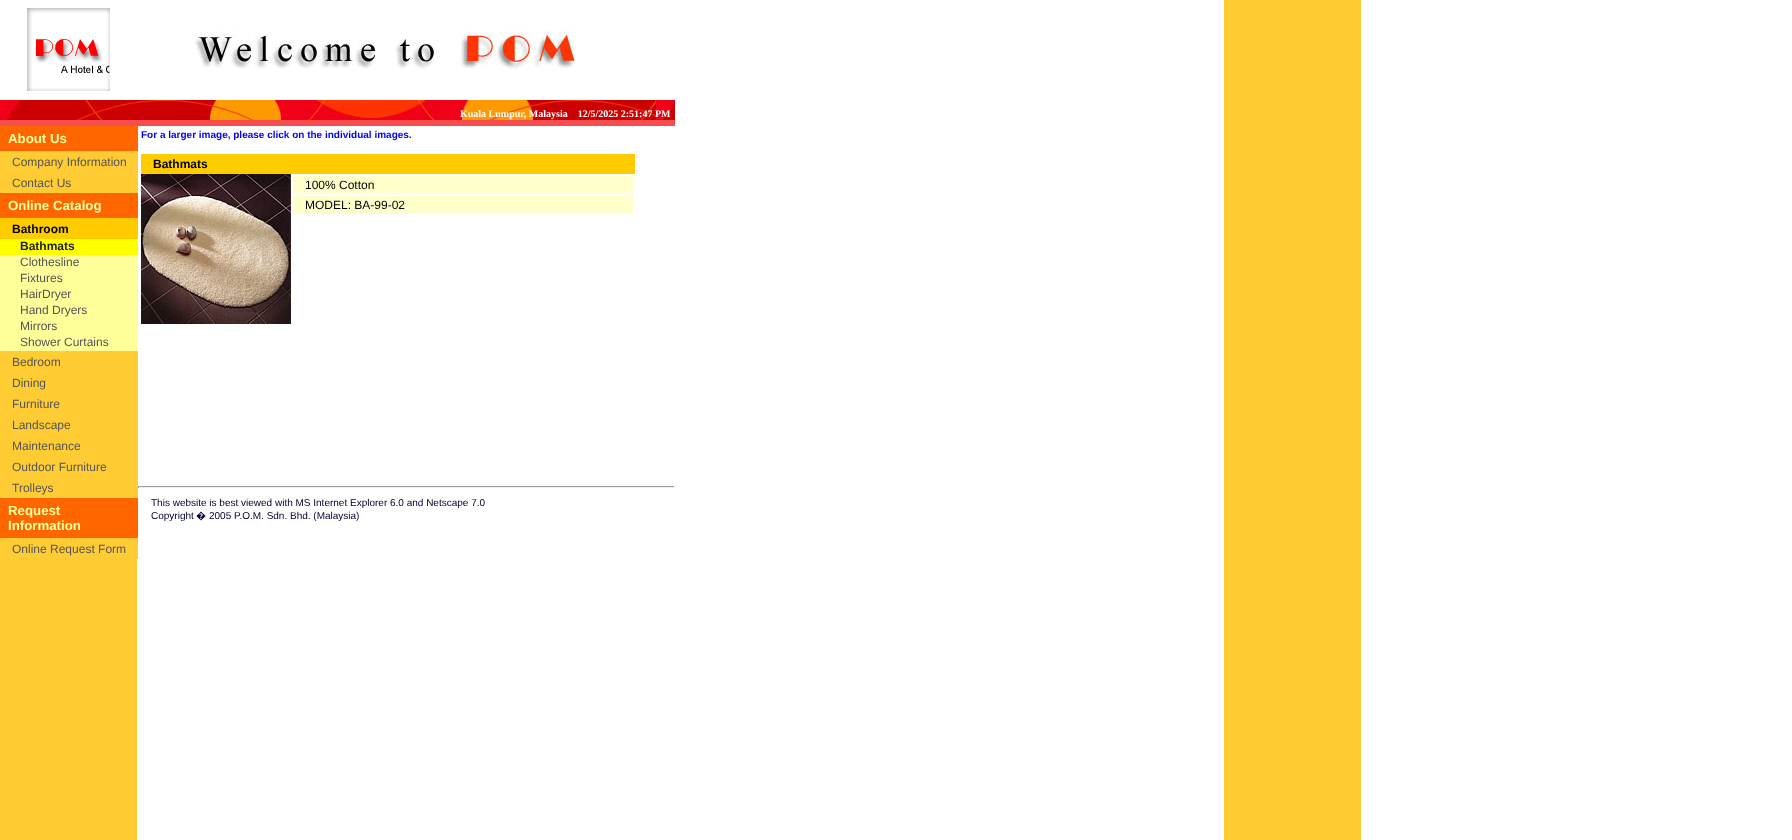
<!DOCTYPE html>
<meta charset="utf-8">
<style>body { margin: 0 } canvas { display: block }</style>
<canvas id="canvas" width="1792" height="840"></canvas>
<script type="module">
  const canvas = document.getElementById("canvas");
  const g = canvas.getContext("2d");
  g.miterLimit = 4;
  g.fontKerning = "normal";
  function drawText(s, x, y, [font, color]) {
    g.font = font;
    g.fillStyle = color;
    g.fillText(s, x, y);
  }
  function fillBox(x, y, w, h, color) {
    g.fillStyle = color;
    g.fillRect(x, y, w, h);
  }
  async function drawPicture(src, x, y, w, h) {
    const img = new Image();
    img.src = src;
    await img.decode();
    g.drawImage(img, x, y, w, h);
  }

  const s1 = ["bold 10px Liberation Serif", "#FFFFFF"];
  const s2 = ["bold 13.25px Liberation Sans", "#FFFF9C"];
  const s3 = ["12px Liberation Sans", "#555555"];
  const s4 = ["bold 12px Liberation Sans", "#000000"];
  const s5 = ["bold 12px Liberation Sans", "#222222"];
  const s6 = ["bold 10px Liberation Sans", "#0000FF"];
  const s7 = ["12px Liberation Sans", "#000000"];
  const s8 = ["10px Liberation Sans", "#00002F"];
  const s9 = ["10px Noto Sans", "#00002F"];

  fillBox(0, 0, 1792, 840, "#FFFFFF");
  await drawPicture("pic1.png", 0, 0, 1361, 840);
  fillBox(0, 0, 137, 100, "#FFFFFF");
  await drawPicture("pic2.png", 27, 8, 83, 83);
  await drawPicture("pic3.png", 191, 31, 384, 38);
  await drawPicture("pic4.png", 0, 100, 675, 26);
  drawText("Kuala Lumpur, Malaysia    12/5/2025 2:51:47 PM", 460, 117, s1);
  fillBox(0, 126, 138, 25, "#FF6600");
  drawText("About Us", 8, 143, s2);
  fillBox(137, 151, 1, 42, "#FFCC33");
  drawText("Company Information", 12, 166, s3);
  drawText("Contact Us", 12, 187, s3);
  fillBox(0, 193, 138, 25, "#FF6600");
  drawText("Online Catalog", 8, 210, s2);
  fillBox(0, 218, 138, 21, "#FFCC00");
  drawText("Bathroom", 12, 233, s4);
  fillBox(0, 239, 138, 16, "#FFFF00");
  drawText("Bathmats", 20, 250, s5);
  fillBox(0, 255, 138, 96, "#FFFF99");
  drawText("Clothesline", 20, 266, s3);
  drawText("Fixtures", 20, 282, s3);
  drawText("HairDryer", 20, 298, s3);
  drawText("Hand Dryers", 20, 314, s3);
  drawText("Mirrors", 20, 330, s3);
  drawText("Shower Curtains", 20, 346, s3);
  fillBox(137, 351, 1, 147, "#FFCC33");
  drawText("Bedroom", 12, 366, s3);
  drawText("Dining", 12, 387, s3);
  drawText("Furniture", 12, 408, s3);
  drawText("Landscape", 12, 429, s3);
  drawText("Maintenance", 12, 450, s3);
  drawText("Outdoor Furniture", 12, 471, s3);
  drawText("Trolleys", 12, 492, s3);
  fillBox(0, 498, 138, 40, "#FF6600");
  drawText("Request", 8, 515, s2);
  drawText("Information", 8, 530, s2);
  fillBox(137, 538, 1, 21, "#FFCC33");
  drawText("Online Request Form", 12, 553, s3);
  drawText("For a larger image, please click on the individual images.", 141, 138, s6);
  fillBox(141, 154, 494, 20, "#FFCC00");
  drawText("Bathmats", 153, 168, s4);
  await drawPicture("pic5.png", 141, 174, 150, 150);
  fillBox(293, 176, 340, 18, "#FFFFCC");
  drawText("100% Cotton", 305, 189, s7);
  fillBox(293, 196, 340, 18, "#FFFFCC");
  drawText("MODEL: BA-99-02", 305, 209, s7);
  fillBox(138, 486, 537, 1, "#9F9F9F");
  fillBox(674, 486, 1, 2, "#EEEEEE");
  fillBox(138, 487, 537, 1, "#EEEEEE");
  fillBox(138, 486, 1, 2, "#9F9F9F");
  drawText("This website is best viewed with MS Internet Explorer 6.0 and Netscape 7.0", 151, 506, s8);
  drawText("Copyright", 151, 519, s8);
  drawText("�", 196, 519, s9);
  drawText("2005 P.O.M. Sdn. Bhd. (Malaysia)", 209, 519, s8);
</script>
